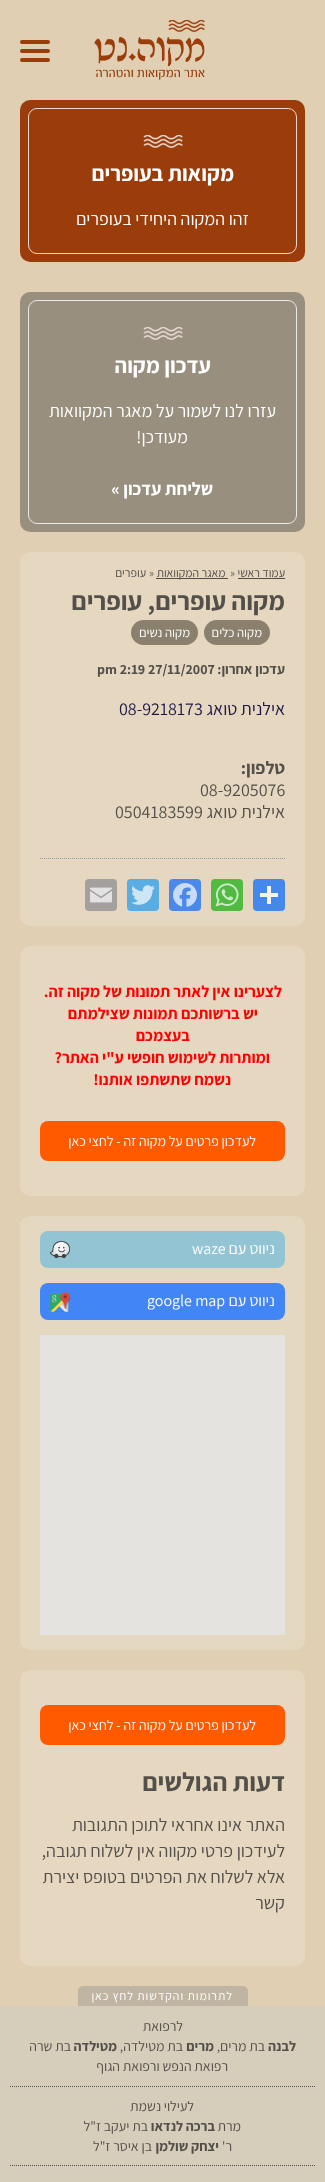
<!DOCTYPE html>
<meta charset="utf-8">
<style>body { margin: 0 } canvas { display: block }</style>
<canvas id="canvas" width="325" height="2182"></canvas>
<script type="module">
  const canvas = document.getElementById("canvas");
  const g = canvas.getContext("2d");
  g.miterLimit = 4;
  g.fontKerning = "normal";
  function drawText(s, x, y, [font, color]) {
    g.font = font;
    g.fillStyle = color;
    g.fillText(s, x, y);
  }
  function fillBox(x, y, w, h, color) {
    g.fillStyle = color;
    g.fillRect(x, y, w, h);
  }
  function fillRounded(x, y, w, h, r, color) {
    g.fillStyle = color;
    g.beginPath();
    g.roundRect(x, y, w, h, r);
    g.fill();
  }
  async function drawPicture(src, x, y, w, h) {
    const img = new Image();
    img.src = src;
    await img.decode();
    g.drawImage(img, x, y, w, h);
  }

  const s1 = ["bold 22px Assistant", "#FFFFFF"];
  const s2 = ["18px Assistant", "#FFFFFF"];
  const s3 = ["bold 18px Assistant", "#FFFFFF"];
  const s4 = ["12px Assistant", "#534F49"];
  const s5 = ["bold 26px Assistant", "#534F49"];
  const s6 = ["13px Assistant", "#FFFFFF"];
  const s7 = ["bold 14px Assistant", "#534F49"];
  const s8 = ["18px Assistant", "#1C1649"];
  const s9 = ["bold 18px Assistant", "#534F49"];
  const s10 = ["18px Assistant", "#534F49"];
  const s11 = ["bold 16px Assistant", "#FF0000"];
  const s12 = ["14px Assistant", "#FFFFFF"];
  const s13 = ["16px Assistant", "#FFFFFF"];
  const s14 = ["12px Assistant", "#FFFFFF"];
  const s15 = ["14px Assistant", "#534F49"];

  fillBox(0, 0, 325, 2182, "#E0CFB2");
  await drawPicture("pic1.png", 94, 20, 111, 60);
  fillRounded(20, 40, 30, 4, 2, "#9A3D0A");
  fillRounded(20, 49, 30, 4, 2, "#9A3D0A");
  fillRounded(20, 58, 30, 4, 2, "#9A3D0A");
  fillRounded(20, 100, 285, 162, 10, "#9A3D0A");
  g.beginPath();
  g.roundRect(28.5, 108.5, 268, 145, 8.5);
  g.strokeStyle = "#EBD8CE";
  g.stroke();
  await drawPicture("pic2.png", 143, 135, 40, 13);
  g.direction = "rtl";
  drawText("מקואות בעופרים", 234, 181, s1);
  drawText("זהו המקוה היחידי בעופרים", 249, 225, s2);
  fillRounded(20, 292, 285, 240, 10, "#988F7E");
  g.beginPath();
  g.roundRect(28.5, 300.5, 268, 223, 8.5);
  g.strokeStyle = "#EAE9E5";
  g.stroke();
  await drawPicture("pic3.png", 143, 327, 40, 13);
  drawText("עדכון מקוה", 211, 373, s1);
  drawText("עזרו לנו לשמור על מאגר המקוואות", 276, 417, s2);
  drawText("מעודכן!", 188, 443, s2);
  drawText("שליחת עדכון »", 213, 495, s3);
  fillRounded(20, 552, 285, 374, 10, "#E5D7C0");
  drawText("עמוד ראשי", 285, 577, s4);
  fillBox(238, 578, 47, 1, "#534F49");
  g.direction = "ltr";
  drawText("»", 230, 577, s4);
  fillBox(156, 578, 72, 1, "#534F49");
  g.direction = "rtl";
  drawText(" מאגר המקוואות", 228, 577, s4);
  g.direction = "ltr";
  drawText("»", 149, 577, s4);
  g.direction = "rtl";
  drawText("עופרים", 146, 577, s4);
  drawText("מקוה עופרים, עופרים", 285, 610, s5);
  fillRounded(204, 620, 66, 25, 12.5, "#8A806D");
  drawText("מקוה כלים", 262, 637, s6);
  fillRounded(131, 620, 67, 25, 12.5, "#8A806D");
  drawText("מקוה נשים", 190, 637, s6);
  drawText("עדכון אחרון:", 285, 674, s7);
  g.direction = "ltr";
  drawText("pm 2:19 27/11/2007", 97, 674, s7);
  g.direction = "rtl";
  drawText("אילנית טואג", 285, 715, s8);
  g.direction = "ltr";
  drawText("08-9218173", 119, 715, s8);
  g.beginPath();
  g.moveTo(40, 858.5);
  g.lineTo(285, 858.5);
  g.strokeStyle = "#999999";
  g.setLineDash([1, 1]);
  g.stroke();
  g.direction = "rtl";
  drawText("טלפון:", 285, 774, s9);
  g.direction = "ltr";
  drawText("08-9205076", 200, 796, s10);
  g.direction = "rtl";
  drawText("אילנית טואג", 285, 818, s10);
  g.direction = "ltr";
  drawText("0504183599", 115, 818, s10);
  fillRounded(253, 879, 32, 32, 4, "#4588EC");
  fillBox(267, 886, 4, 18, "#F7F3EC");
  fillBox(260, 893, 18, 4, "#F7F3EC");
  fillRounded(211, 879, 32, 32, 4, "#51BB41");
  await drawPicture("pic4.png", 215, 883, 24, 24);
  fillRounded(169, 879, 32, 32, 4, "#4A88EC");
  await drawPicture("pic5.png", 173, 883, 24, 24);
  fillRounded(127, 879, 32, 32, 4, "#59ADE2");
  await drawPicture("pic6.png", 131, 885, 24, 20);
  fillRounded(85, 879, 32, 32, 4, "#A4A09E");
  await drawPicture("pic7.png", 90, 887, 22, 16);
  fillRounded(20, 946, 285, 250, 10, "#E5D7C0");
  g.direction = "rtl";
  drawText("לצערינו אין לאתר תמונות של מקוה זה.", 282, 997, s11);
  drawText("יש ברשותכם תמונות שצילמתם", 258, 1019, s11);
  drawText("בעצמכם", 190, 1041, s11);
  drawText("ומותרות לשימוש חופשי ע\"י האתר?", 270, 1063, s11);
  drawText("נשמח שתשתפו אותנו!", 231, 1085, s11);
  fillRounded(40, 1121, 245, 40, 8, "#FF5A00");
  drawText("לעדכון פרטים על מקוה זה - לחצי כאן", 256, 1146, s12);
  fillRounded(20, 1216, 285, 434, 10, "#E5D8C0");
  fillRounded(40, 1231, 245, 37, 8, "#93C4D3");
  await drawPicture("pic8.png", 50, 1241, 20, 17);
  drawText("ניווט עם", 275, 1254, s13);
  g.direction = "ltr";
  drawText("waze", 192, 1254, s13);
  fillRounded(40, 1283, 245, 37, 8, "#4285F4");
  await drawPicture("pic9.png", 50, 1292, 20, 20);
  g.direction = "rtl";
  drawText("ניווט עם", 275, 1306, s13);
  g.direction = "ltr";
  drawText("google map", 147, 1306, s13);
  fillBox(40, 1335, 245, 300, "#E5E3DF");
  fillRounded(20, 1670, 285, 296, 10, "#E5D7C0");
  fillRounded(40, 1705, 245, 40, 8, "#FF5A00");
  g.direction = "rtl";
  drawText("לעדכון פרטים על מקוה זה - לחצי כאן", 256, 1730, s12);
  drawText("דעות הגולשים", 285, 1791, s5);
  drawText("האתר אינו אחראי לתוכן התגובות", 285, 1831, s10);
  drawText("לעידכון פרטי מקווה אין לשלוח תגובה,", 285, 1857, s10);
  drawText("אלא לשלוח את הפרטים בטופס יצירת", 285, 1883, s10);
  drawText("קשר", 285, 1909, s10);
  fillBox(0, 2006, 325, 176, "#D6CDBB");
  g.fillStyle = "#BFB5A2";
  g.beginPath();
  g.roundRect(78, 1986, 170, 20, [5, 5, 0, 0]);
  g.fill();
  g.letterSpacing = "1px";
  drawText("לתרומות והקדשות לחץ כאן", 233, 2000, s14);
  g.letterSpacing = "0px";
  drawText("לרפואת", 183, 2031, s15);
  drawText("לבנה", 296, 2051, s7);
  drawText("בת מרים,", 265, 2051, s15);
  drawText("מרים", 214, 2051, s7);
  drawText("בת מטילדה,", 183, 2051, s15);
  drawText("מטילדה", 117, 2051, s7);
  drawText("בת שרה", 71, 2051, s15);
  drawText("רפואת הנפש ורפואת הגוף", 228, 2071, s15);
  g.beginPath();
  g.moveTo(10, 2086.5);
  g.lineTo(315, 2086.5);
  g.strokeStyle = "#534F49";
  g.stroke();
  drawText("לעילוי נשמת", 194, 2111, s15);
  drawText("מרת", 241, 2131, s15);
  drawText("ברכה לנדאו", 215, 2131, s7);
  drawText("בת יעקב ז\"ל", 148, 2131, s15);
  drawText("ר'", 232, 2151, s15);
  drawText("יצחק שולמן", 219, 2151, s7);
  drawText("בן איסר ז\"ל", 152, 2151, s15);
  g.beginPath();
  g.moveTo(10, 2165.5);
  g.lineTo(315, 2165.5);
  g.stroke();
</script>
